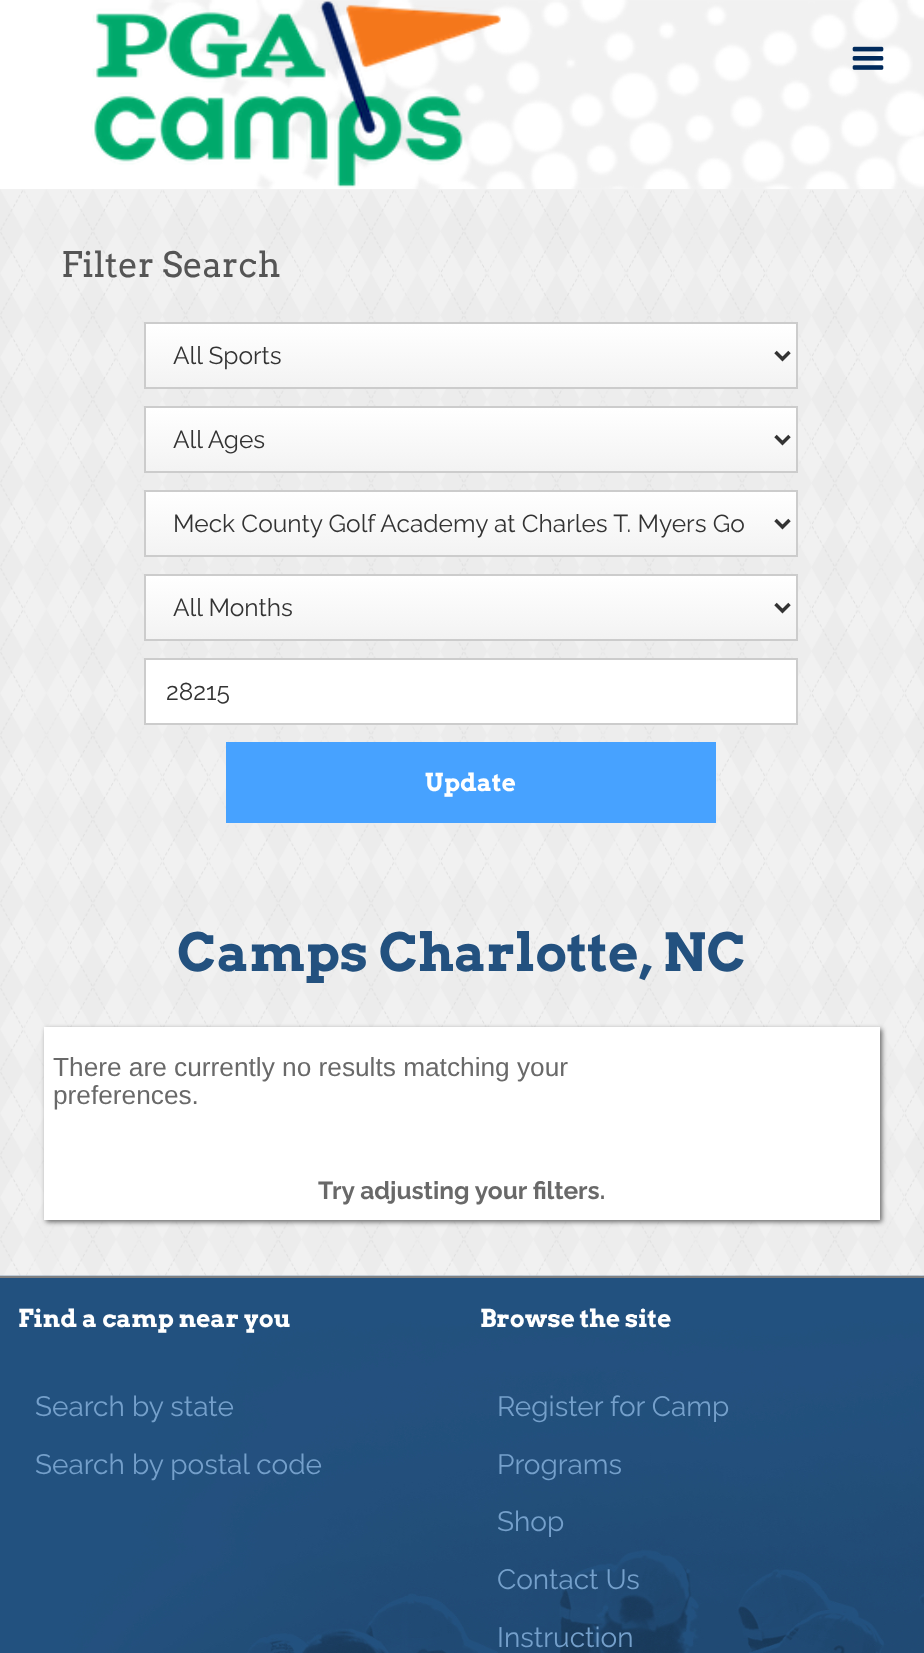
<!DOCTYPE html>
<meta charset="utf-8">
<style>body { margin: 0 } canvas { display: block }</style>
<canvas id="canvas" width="924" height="1653"></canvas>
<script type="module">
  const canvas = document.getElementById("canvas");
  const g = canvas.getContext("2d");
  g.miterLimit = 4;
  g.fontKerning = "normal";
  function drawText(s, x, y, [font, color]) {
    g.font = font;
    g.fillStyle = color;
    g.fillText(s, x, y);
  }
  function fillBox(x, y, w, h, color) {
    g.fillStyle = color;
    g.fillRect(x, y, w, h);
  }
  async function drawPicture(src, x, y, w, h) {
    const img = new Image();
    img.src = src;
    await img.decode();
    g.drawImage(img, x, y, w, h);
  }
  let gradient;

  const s1 = ["35px Arvo", "#555555"];
  const s2 = ["24.5px Raleway", "#333333"];
  const s3 = ["bold 24.5px Arvo", "#FFFFFF"];
  const s4 = ["bold 52.5px Arvo", "#23517F"];
  const s5 = ["26.25px Liberation Sans", "#696969"];
  const s6 = ["bold 24.5px Raleway", "#696969"];
  const s7 = ["28px Raleway", "#75A0CB"];

  fillBox(0, 0, 924, 1653, "#FFFFFF");
  await drawPicture("pic1.png", 97, 0, 827, 189);
  await drawPicture("pic2.png", 91, 0, 410, 188);
  await drawPicture("pic3.png", 852, 46, 32, 24);
  await drawPicture("pic4.png", 0, 189, 924, 1087);
  drawText("Filter Search", 61, 277, s1);
  gradient = g.createLinearGradient(471, 324, 471, 387);
  gradient.addColorStop(0, "#FFFFFF");
  gradient.addColorStop(1, "#F3F3F3");
  g.fillStyle = gradient;
  g.fillRect(146, 324, 650, 63);
  g.strokeStyle = "#CCCCCC";
  g.lineWidth = 2;
  g.strokeRect(145, 323, 652, 65);
  g.beginPath();
  g.moveTo(775.5, 352);
  g.lineTo(782.5, 359);
  g.lineTo(789.5, 352);
  g.strokeStyle = "#333333";
  g.lineWidth = 3.5;
  g.stroke();
  drawText("All Sports", 173, 364, s2);
  gradient = g.createLinearGradient(471, 408, 471, 471);
  gradient.addColorStop(0, "#FFFFFF");
  gradient.addColorStop(1, "#F3F3F3");
  g.fillStyle = gradient;
  g.fillRect(146, 408, 650, 63);
  g.strokeStyle = "#CCCCCC";
  g.lineWidth = 2;
  g.strokeRect(145, 407, 652, 65);
  g.beginPath();
  g.moveTo(775.5, 436);
  g.lineTo(782.5, 443);
  g.lineTo(789.5, 436);
  g.strokeStyle = "#333333";
  g.lineWidth = 3.5;
  g.stroke();
  drawText("All Ages", 173, 448, s2);
  gradient = g.createLinearGradient(471, 492, 471, 555);
  gradient.addColorStop(0, "#FFFFFF");
  gradient.addColorStop(1, "#F3F3F3");
  g.fillStyle = gradient;
  g.fillRect(146, 492, 650, 63);
  g.strokeStyle = "#CCCCCC";
  g.lineWidth = 2;
  g.strokeRect(145, 491, 652, 65);
  g.beginPath();
  g.moveTo(775.5, 520);
  g.lineTo(782.5, 527);
  g.lineTo(789.5, 520);
  g.strokeStyle = "#333333";
  g.lineWidth = 3.5;
  g.stroke();
  drawText("Meck County Golf Academy at Charles T. Myers Go", 173, 532, s2);
  gradient = g.createLinearGradient(471, 576, 471, 639);
  gradient.addColorStop(0, "#FFFFFF");
  gradient.addColorStop(1, "#F3F3F3");
  g.fillStyle = gradient;
  g.fillRect(146, 576, 650, 63);
  g.strokeStyle = "#CCCCCC";
  g.lineWidth = 2;
  g.strokeRect(145, 575, 652, 65);
  g.beginPath();
  g.moveTo(775.5, 604);
  g.lineTo(782.5, 611);
  g.lineTo(789.5, 604);
  g.strokeStyle = "#333333";
  g.lineWidth = 3.5;
  g.stroke();
  drawText("All Months", 173, 616, s2);
  g.fillStyle = "#FFFFFF";
  g.beginPath();
  g.rect(145, 659, 652, 65);
  g.fill();
  g.strokeStyle = "#CCCCCC";
  g.lineWidth = 2;
  g.stroke();
  drawText("28215", 166, 700, s2);
  fillBox(226, 742, 490, 81, "#47A2FF");
  drawText("Update", 425, 791, s3);
  drawText("Camps Charlotte, NC", 177, 971, s4);
  g.fillStyle = "#696969";
  g.filter = "blur(2.5px)";
  g.beginPath();
  g.rect(46, 1029, 836, 193);
  g.fill();
  g.filter = "none";
  fillBox(44, 1027, 836, 193, "#FFFFFF");
  drawText("There are currently no results matching your", 53, 1076, s5);
  drawText("preferences.", 53, 1104, s5);
  drawText("Try adjusting your filters.", 318, 1199, s6);
  await drawPicture("pic5.png", 0, 1275, 924, 378);
  fillBox(0, 1276, 924, 2, "#808080");
  drawText("Find a camp near you", 18, 1327, s3);
  drawText("Search by state", 35, 1416, s7);
  drawText("Search by postal code", 35, 1474, s7);
  drawText("Browse the site", 480, 1327, s3);
  drawText("Register for Camp", 497, 1416, s7);
  drawText("Programs", 497, 1474, s7);
  drawText("Shop", 497, 1531, s7);
  drawText("Contact Us", 497, 1589, s7);
  drawText("Instruction", 497, 1647, s7);
</script>
